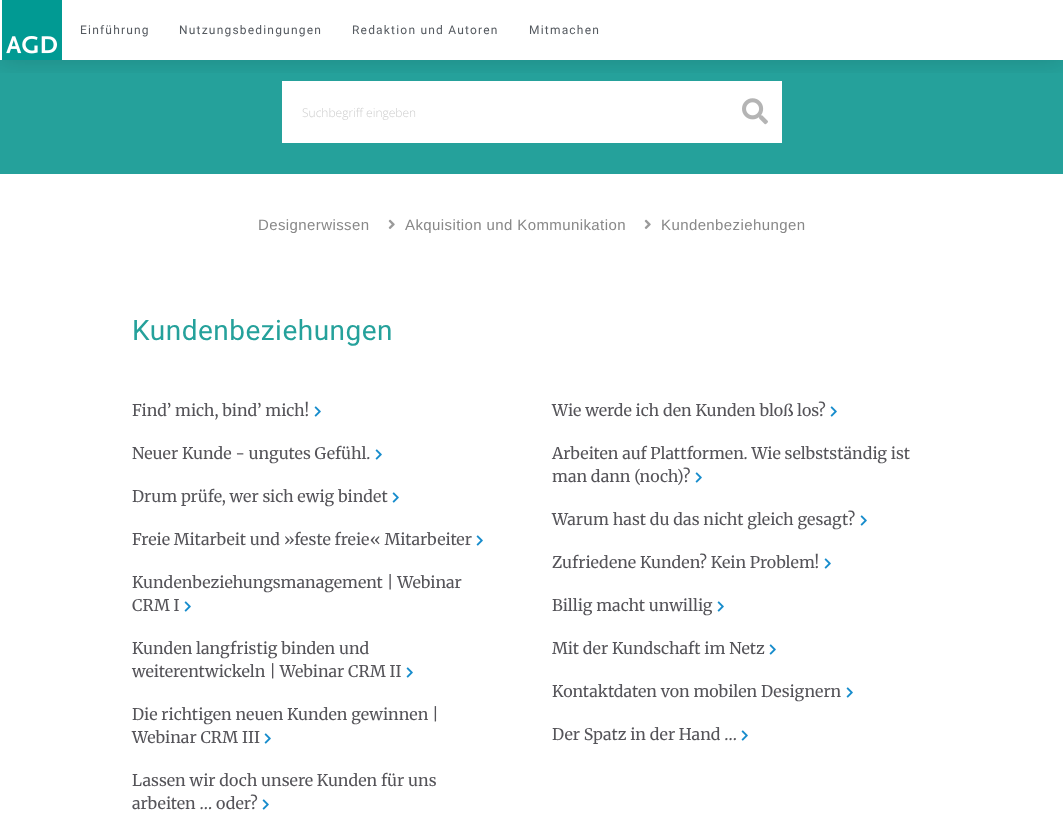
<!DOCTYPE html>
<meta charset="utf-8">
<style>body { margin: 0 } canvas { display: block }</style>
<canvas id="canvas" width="1063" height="827"></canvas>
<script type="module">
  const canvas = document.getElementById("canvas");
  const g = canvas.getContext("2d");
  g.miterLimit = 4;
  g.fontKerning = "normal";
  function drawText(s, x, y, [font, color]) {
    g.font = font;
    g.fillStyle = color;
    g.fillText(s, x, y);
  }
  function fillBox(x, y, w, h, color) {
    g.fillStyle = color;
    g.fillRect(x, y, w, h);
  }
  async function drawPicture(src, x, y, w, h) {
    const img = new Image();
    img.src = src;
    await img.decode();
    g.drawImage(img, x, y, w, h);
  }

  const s1 = ["12px Roboto", "#54595F"];
  const s2 = ["300 12px Open Sans", "#CDCDCD"];
  const s3 = ["15px Liberation Sans", "#888888"];
  const s4 = ["28px Roboto", "#25A19B"];
  const s5 = ["16px Merriweather", "#555459"];

  fillBox(0, 0, 1063, 827, "#FFFFFF");
  fillBox(0, 60, 1063, 114, "#25A19B");
  fillBox(282, 81, 500, 62, "#FFFFFF");
  g.save();
  g.beginPath();
  g.rect(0, 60, 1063, 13);
  g.clip();
  g.fillStyle = "rgba(0, 0, 0, 0.15)";
  g.filter = "blur(12px)";
  g.beginPath();
  g.rect(0, 0, 1063, 60);
  g.fill();
  g.filter = "none";
  g.restore();
  await drawPicture("pic1.png", 2, 0, 60, 60);
  g.letterSpacing = "1.2px";
  drawText("Einführung", 80, 34, s1);
  drawText("Nutzungsbedingungen", 179, 34, s1);
  drawText("Redaktion und Autoren", 352, 34, s1);
  drawText("Mitmachen", 529, 34, s1);
  g.letterSpacing = "0px";
  drawText("Suchbegriff eingeben", 302, 117, s2);
  await drawPicture("pic2.png", 742, 98, 26, 27);
  g.letterSpacing = "0.4px";
  drawText("Designerwissen", 258, 230, s3);
  await drawPicture("pic3.png", 388, 219, 7, 10);
  drawText("Akquisition und Kommunikation", 405, 230, s3);
  await drawPicture("pic3.png", 644, 219, 7, 10);
  drawText("Kundenbeziehungen", 661, 230, s3);
  g.letterSpacing = "0.5px";
  drawText("Kundenbeziehungen", 132, 340, s4);
  g.letterSpacing = "0px";
  drawText("Find’ mich, bind’ mich!", 132, 416, s5);
  await drawPicture("pic4.png", 314, 406, 7, 11);
  drawText("Neuer Kunde - ungutes Gefühl.", 132, 459, s5);
  await drawPicture("pic4.png", 375, 449, 7, 11);
  drawText("Drum prüfe, wer sich ewig bindet", 132, 502, s5);
  await drawPicture("pic4.png", 392, 492, 7, 11);
  drawText("Freie Mitarbeit und »feste freie« Mitarbeiter", 132, 545, s5);
  await drawPicture("pic4.png", 476, 535, 7, 11);
  drawText("Kundenbeziehungsmanagement | Webinar", 132, 588, s5);
  drawText("CRM I", 132, 611, s5);
  await drawPicture("pic4.png", 184, 601, 7, 11);
  drawText("Kunden langfristig binden und", 132, 654, s5);
  drawText("weiterentwickeln | Webinar CRM II", 132, 677, s5);
  await drawPicture("pic4.png", 406, 667, 7, 11);
  drawText("Die richtigen neuen Kunden gewinnen |", 132, 720, s5);
  drawText("Webinar CRM III", 132, 743, s5);
  await drawPicture("pic4.png", 264, 733, 7, 11);
  drawText("Lassen wir doch unsere Kunden für uns", 132, 786, s5);
  drawText("arbeiten … oder?", 132, 809, s5);
  await drawPicture("pic4.png", 262, 799, 7, 11);
  drawText("Wie werde ich den Kunden bloß los?", 552, 416, s5);
  await drawPicture("pic4.png", 830, 406, 7, 11);
  drawText("Arbeiten auf Plattformen. Wie selbstständig ist", 552, 459, s5);
  drawText("man dann (noch)?", 552, 482, s5);
  await drawPicture("pic4.png", 695, 472, 7, 11);
  drawText("Warum hast du das nicht gleich gesagt?", 552, 525, s5);
  await drawPicture("pic4.png", 860, 515, 7, 11);
  drawText("Zufriedene Kunden? Kein Problem!", 552, 568, s5);
  await drawPicture("pic4.png", 824, 558, 7, 11);
  drawText("Billig macht unwillig", 552, 611, s5);
  await drawPicture("pic4.png", 717, 601, 7, 11);
  drawText("Mit der Kundschaft im Netz", 552, 654, s5);
  await drawPicture("pic4.png", 769, 644, 7, 11);
  drawText("Kontaktdaten von mobilen Designern", 552, 697, s5);
  await drawPicture("pic4.png", 846, 687, 7, 11);
  drawText("Der Spatz in der Hand …", 552, 740, s5);
  await drawPicture("pic4.png", 741, 730, 7, 11);
</script>
